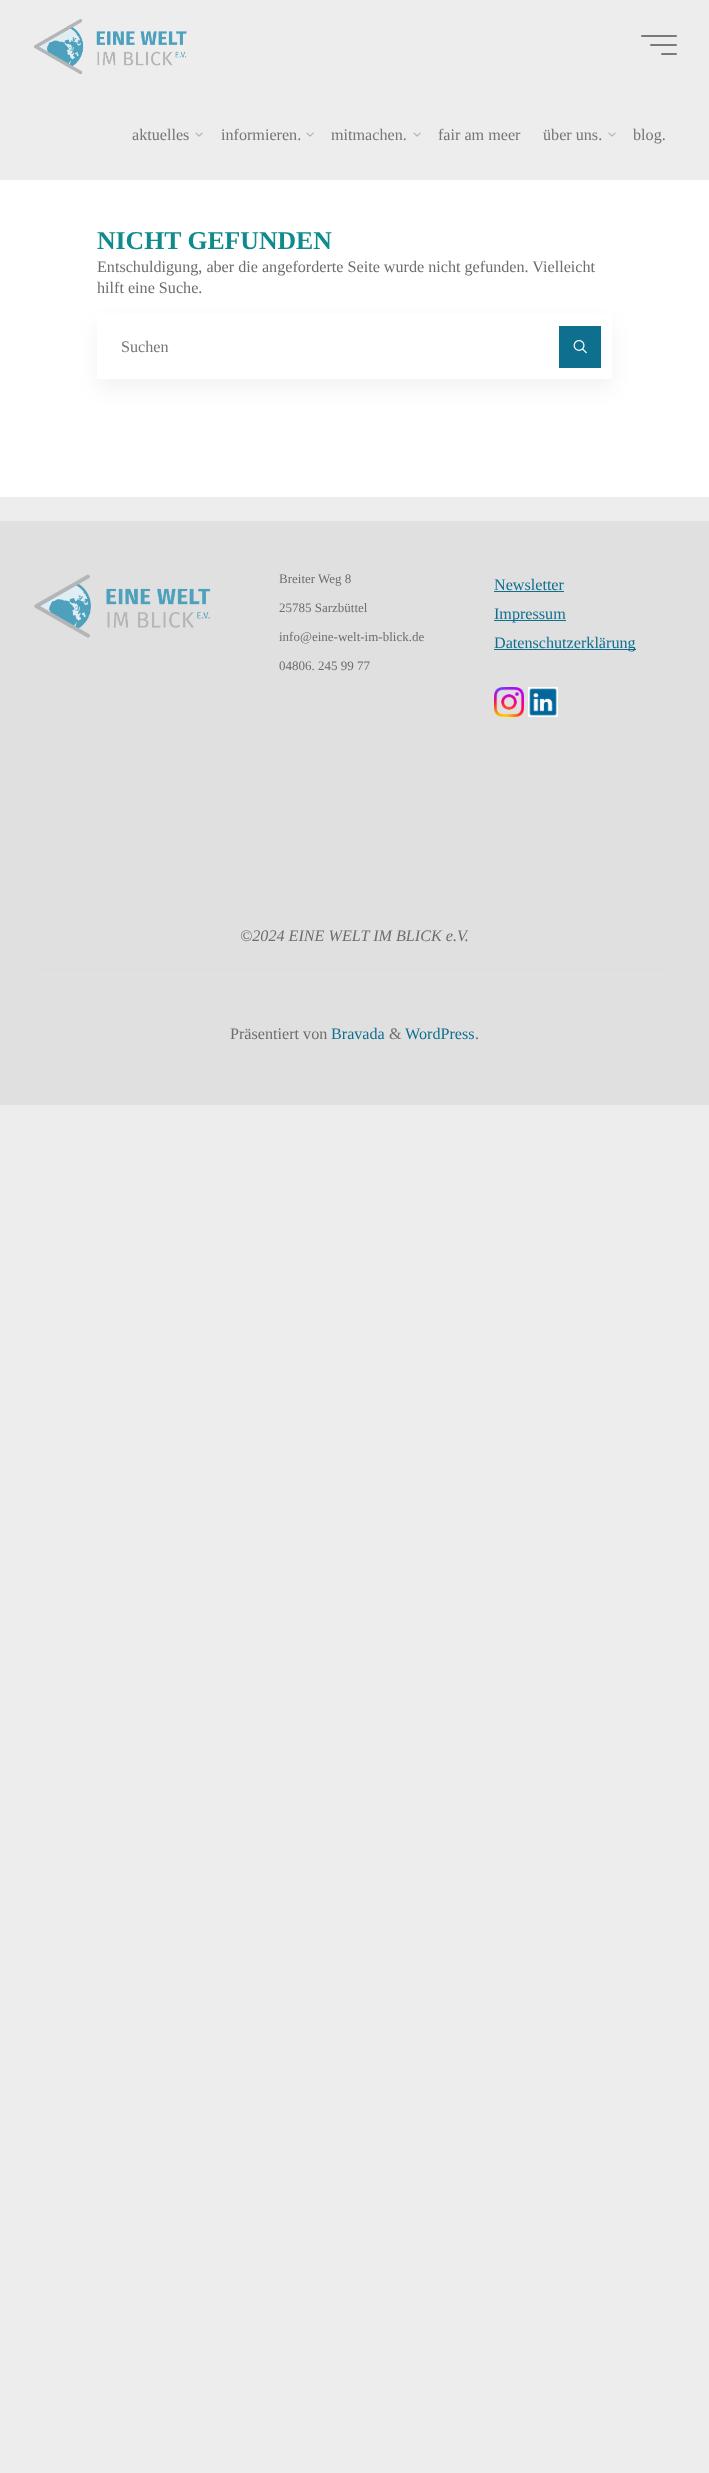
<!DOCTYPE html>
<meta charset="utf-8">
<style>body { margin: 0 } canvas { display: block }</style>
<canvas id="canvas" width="709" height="2473"></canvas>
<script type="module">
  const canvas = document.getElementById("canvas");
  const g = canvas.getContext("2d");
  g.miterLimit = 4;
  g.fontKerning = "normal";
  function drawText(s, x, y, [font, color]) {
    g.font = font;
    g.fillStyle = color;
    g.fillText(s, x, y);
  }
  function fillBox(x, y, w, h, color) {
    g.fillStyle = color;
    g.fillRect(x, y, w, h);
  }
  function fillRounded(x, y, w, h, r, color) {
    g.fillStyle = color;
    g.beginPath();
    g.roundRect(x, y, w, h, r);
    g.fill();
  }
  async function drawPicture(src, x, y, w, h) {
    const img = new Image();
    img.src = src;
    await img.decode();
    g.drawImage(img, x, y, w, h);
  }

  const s1 = ["16.15px Liberation Serif", "#757575"];
  const s2 = ["bold 25.75px Liberation Serif", "#0F8B8D"];
  const s3 = ["16.15px Liberation Serif", "#6D6D6D"];
  const s4 = ["13px Liberation Serif", "#6D6D6D"];
  const s5 = ["16.15px Liberation Serif", "#0F6F8E"];
  const s6 = ["italic 16.15px Liberation Serif", "#6D6D6D"];

  fillBox(0, 0, 709, 2473, "#EDEDED");
  await drawPicture("pic1.png", 34, 19, 153, 56);
  fillRounded(641, 35, 36, 2, 1, "#7A7A7A");
  fillRounded(650, 44, 27, 2, 1, "#7A7A7A");
  fillRounded(661, 53, 16, 2, 1, "#7A7A7A");
  drawText("aktuelles", 132, 140, s1);
  await drawPicture("pic2.png", 195, 132, 8, 5);
  drawText("informieren.", 221, 140, s1);
  await drawPicture("pic2.png", 306, 132, 8, 5);
  drawText("mitmachen.", 331, 140, s1);
  await drawPicture("pic2.png", 413, 132, 8, 5);
  drawText("fair am meer", 438, 140, s1);
  drawText("über uns.", 543, 140, s1);
  await drawPicture("pic2.png", 608, 132, 8, 5);
  drawText("blog.", 633, 140, s1);
  fillBox(0, 180, 709, 317, "#FFFFFF");
  drawText("NICHT GEFUNDEN", 97, 249, s2);
  drawText("Entschuldigung, aber die angeforderte Seite wurde nicht gefunden. Vielleicht", 97, 272, s3);
  drawText("hilft eine Suche.", 97, 293, s3);
  g.save();
  g.beginPath();
  g.moveTo(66, 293);
  g.lineTo(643, 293);
  g.lineTo(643, 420);
  g.lineTo(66, 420);
  g.closePath();
  g.moveTo(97, 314);
  g.lineTo(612, 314);
  g.lineTo(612, 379);
  g.lineTo(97, 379);
  g.closePath();
  g.clip("evenodd");
  g.fillStyle = "rgba(0, 0, 0, 0.05)";
  g.filter = "blur(10px)";
  g.beginPath();
  g.rect(97, 324, 515, 65);
  g.fill();
  g.filter = "none";
  g.restore();
  drawText("Suchen", 121, 352, s1);
  fillBox(559, 326, 42, 42, "#0F6F8E");
  await drawPicture("pic3.png", 573, 340, 14, 14);
  fillBox(0, 521, 709, 584, "#E0E0E0");
  await drawPicture("pic4.png", 34, 574, 177, 64);
  drawText("Breiter Weg 8", 279, 583, s4);
  drawText("25785 Sarzbüttel", 279, 612, s4);
  drawText("info@eine-welt-im-blick.de", 279, 641, s4);
  drawText("04806. 245 99 77", 279, 670, s4);
  drawText("Newsletter", 494, 590, s5);
  fillBox(494, 591, 70, 1, "#0F6F8E");
  fillBox(494, 620, 72, 1, "#0F6F8E");
  drawText("Impressum", 494, 619, s5);
  fillBox(494, 649, 142, 1, "#0F6F8E");
  drawText("Datenschutzerklärung", 494, 648, s5);
  await drawPicture("pic5.png", 494, 687, 30, 30);
  await drawPicture("pic6.png", 528, 687, 30, 30);
  drawText("©2024 EINE WELT IM BLICK e.V.", 240, 941, s6);
  fillBox(40, 974, 629, 1, "#E3E3E3");
  drawText("Präsentiert von", 230, 1039, s3);
  drawText("Bravada", 331, 1039, s5);
  drawText("&", 389, 1039, s3);
  drawText("WordPress", 405, 1039, s5);
  drawText(".", 475, 1039, s3);
</script>
